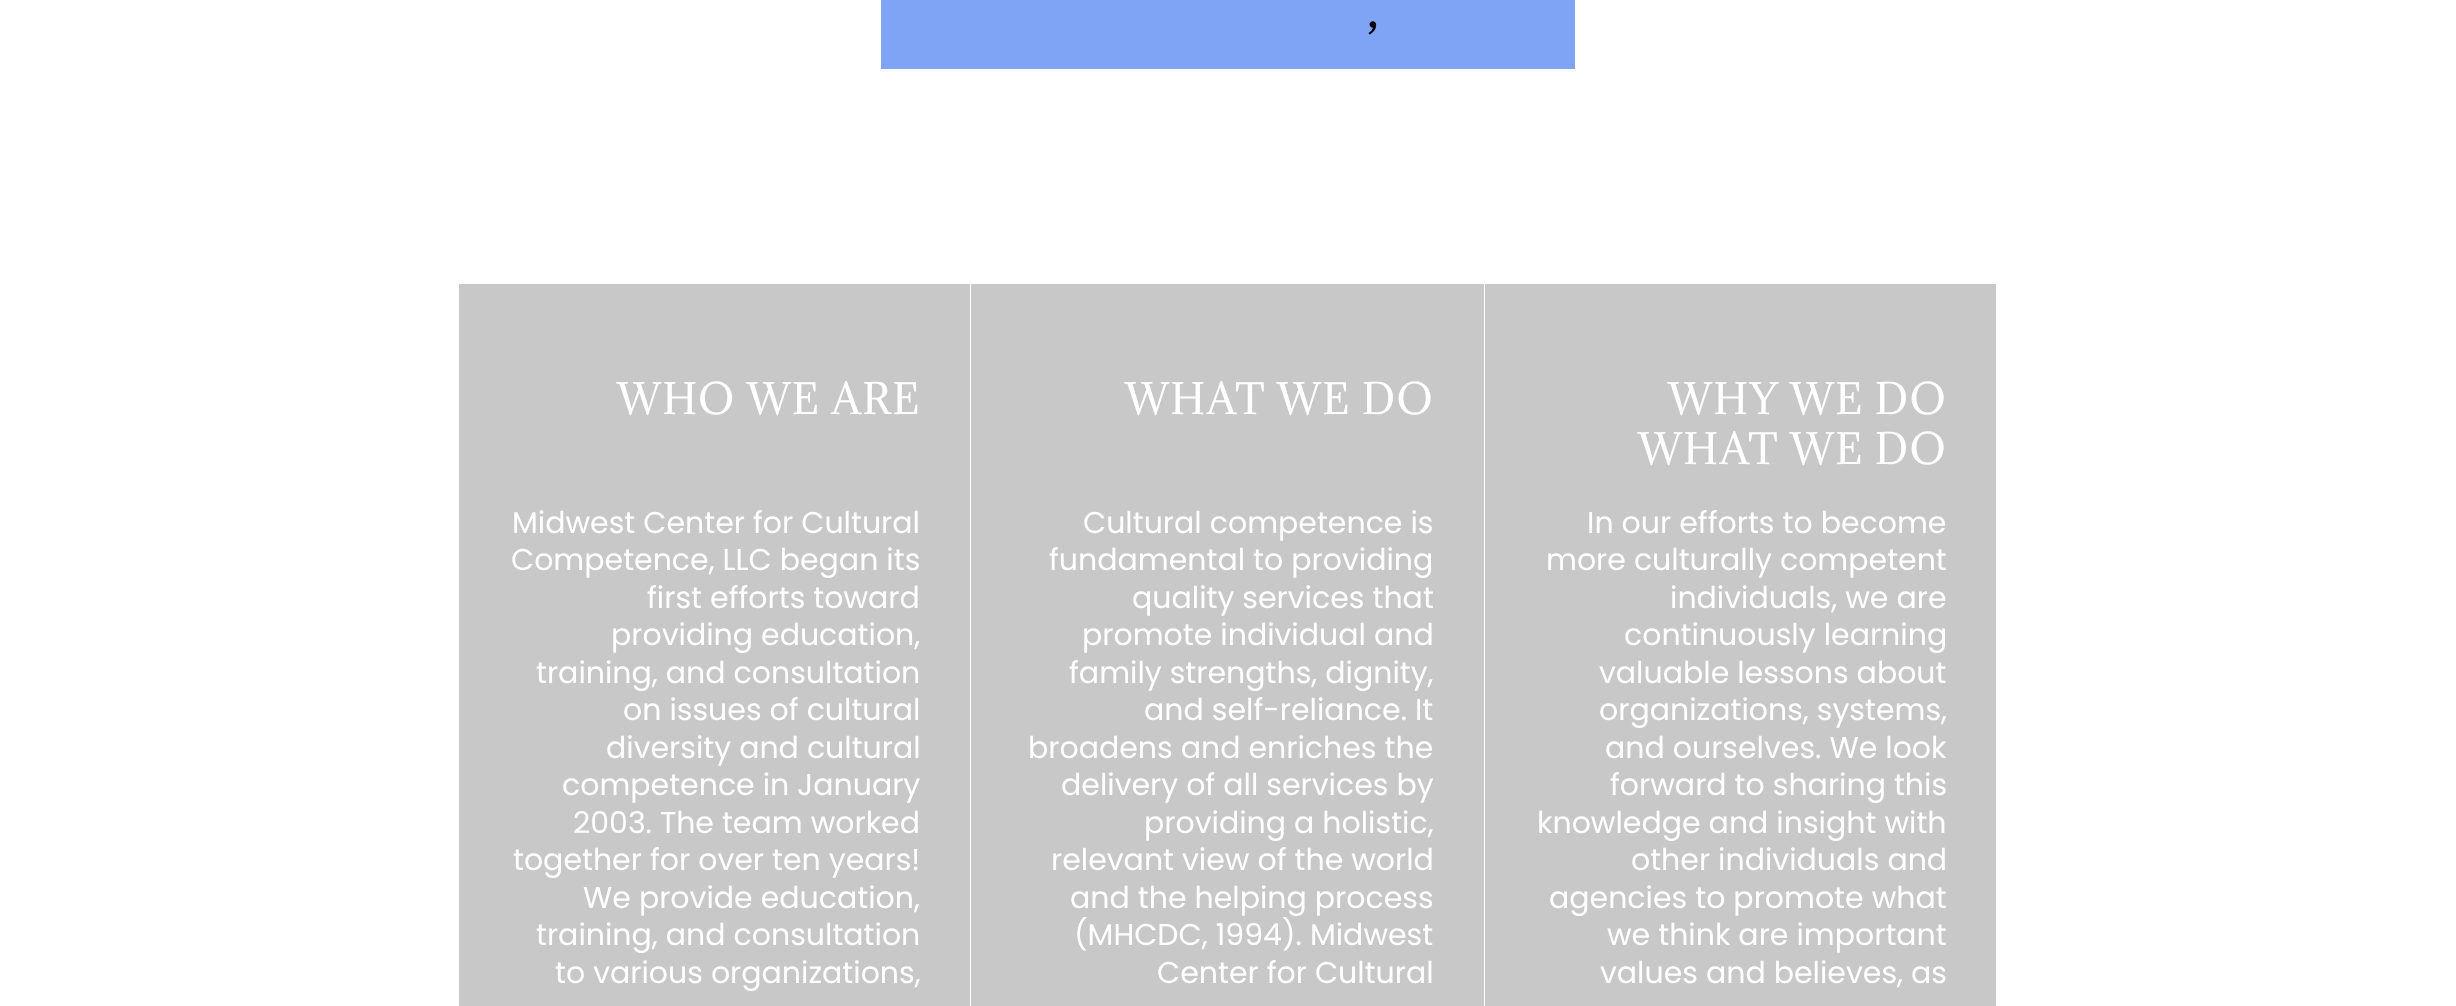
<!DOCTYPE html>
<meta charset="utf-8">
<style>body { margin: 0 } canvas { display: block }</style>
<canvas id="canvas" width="2456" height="1006"></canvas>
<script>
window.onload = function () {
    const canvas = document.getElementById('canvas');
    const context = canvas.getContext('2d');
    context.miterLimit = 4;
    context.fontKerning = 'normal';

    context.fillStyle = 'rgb(255, 255, 255)';
    context.fillRect(0, 0, 2456, 1006);
    context.fillStyle = 'rgb(127, 164, 246)';
    context.fillRect(881, 0, 694, 69);
    context.fillStyle = 'rgb(200, 200, 200)';
    context.fillRect(459, 284, 511, 722);
    context.fillRect(971, 284, 513, 722);
    context.fillRect(1485, 284, 511, 722);
    context.letterSpacing = '1.25px';
    context.font = '52px Adamina';
    context.fillStyle = 'rgb(0, 0, 0)';
    context.fillText(',', 1367, 27);
    context.font = '40px Adamina';
    context.fillStyle = 'rgb(255, 255, 255)';
    context.fillText('WHO WE ARE', 617, 414);
    context.letterSpacing = '0px';
    context.font = '30px Poppins';
    context.fillText('Midwest Center for Cultural', 512, 533);
    context.fillText('Competence, LLC began its', 511, 570);
    context.fillText('first efforts toward', 647, 608);
    context.fillText('providing education,', 611, 645);
    context.fillText('training, and consultation', 536, 683);
    context.fillText('on issues of cultural', 623, 720);
    context.fillText('diversity and cultural', 606, 758);
    context.fillText('competence in January', 562, 795);
    context.fillText('2003. The team worked', 573, 833);
    context.fillText('together for over ten years!', 513, 870);
    context.fillText('We provide education,', 583, 908);
    context.fillText('training, and consultation', 536, 945);
    context.fillText('to various organizations,', 555, 983);
    context.letterSpacing = '1.25px';
    context.font = '40px Adamina';
    context.fillText('WHAT WE DO', 1125, 414);
    context.letterSpacing = '0px';
    context.font = '30px Poppins';
    context.fillText('Cultural competence is', 1083, 533);
    context.fillText('fundamental to providing', 1049, 570);
    context.fillText('quality services that', 1132, 608);
    context.fillText('promote individual and', 1082, 645);
    context.fillText('family strengths, dignity,', 1069, 683);
    context.fillText('and self-reliance. It', 1144, 720);
    context.fillText('broadens and enriches the', 1028, 758);
    context.fillText('delivery of all services by', 1061, 795);
    context.fillText('providing a holistic,', 1144, 833);
    context.fillText('relevant view of the world', 1051, 870);
    context.fillText('and the helping process', 1070, 908);
    context.fillText('(MHCDC, 1994). Midwest', 1074, 945);
    context.fillText('Center for Cultural', 1157, 983);
    context.letterSpacing = '1.25px';
    context.font = '40px Adamina';
    context.fillText('WHY WE DO', 1668, 414);
    context.fillText('WHAT WE DO', 1638, 464);
    context.letterSpacing = '0px';
    context.font = '30px Poppins';
    context.fillText('In our efforts to become', 1587, 533);
    context.fillText('more culturally competent', 1546, 570);
    context.fillText('individuals, we are', 1670, 608);
    context.fillText('continuously learning', 1624, 645);
    context.fillText('valuable lessons about', 1599, 683);
    context.fillText('organizations, systems,', 1599, 720);
    context.fillText('and ourselves. We look', 1605, 758);
    context.fillText('forward to sharing this', 1610, 795);
    context.fillText('knowledge and insight with', 1537, 833);
    context.fillText('other individuals and', 1631, 870);
    context.fillText('agencies to promote what', 1549, 908);
    context.fillText('we think are important', 1607, 945);
    context.fillText('values and believes, as', 1600, 983);
};
</script>
